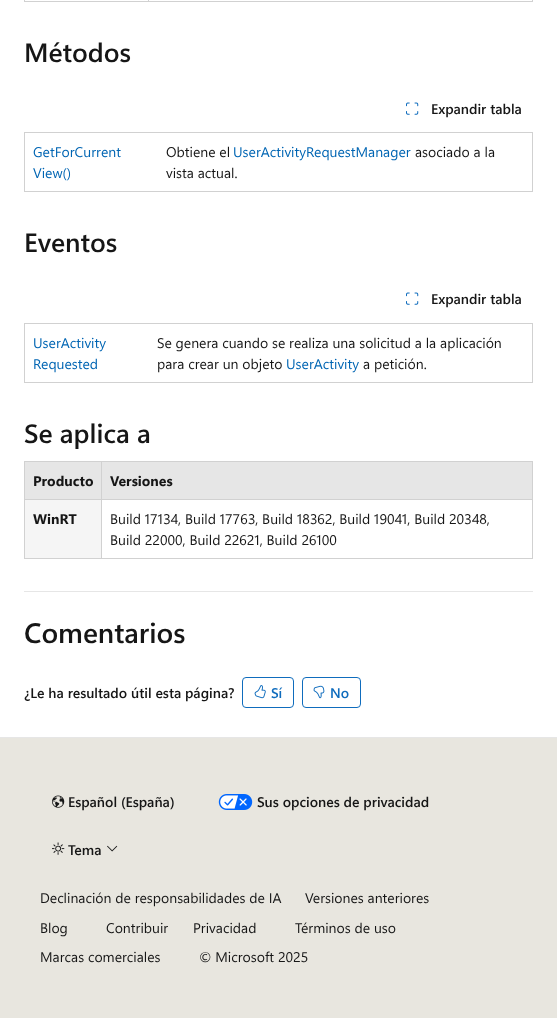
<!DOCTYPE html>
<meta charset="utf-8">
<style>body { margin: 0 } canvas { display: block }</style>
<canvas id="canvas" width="557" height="1018"></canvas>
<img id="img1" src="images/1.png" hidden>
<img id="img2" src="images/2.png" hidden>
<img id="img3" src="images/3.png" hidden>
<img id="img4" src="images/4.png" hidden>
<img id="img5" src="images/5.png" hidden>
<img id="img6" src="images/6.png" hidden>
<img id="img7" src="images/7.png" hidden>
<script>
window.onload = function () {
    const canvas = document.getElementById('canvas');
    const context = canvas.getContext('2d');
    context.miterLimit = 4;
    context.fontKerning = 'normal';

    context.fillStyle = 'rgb(255, 255, 255)';
    context.fillRect(0, 0, 557, 1018);
    context.fillStyle = 'rgb(209, 209, 209)';
    context.fillRect(532, 0, 1, 2);
    context.fillRect(24, 1, 509, 1);
    context.fillRect(24, 0, 1, 2);
    context.fillRect(148, 0, 1, 2);
    context.drawImage(document.getElementById('img1'), 406, 102, 13, 13);
    context.fillRect(24, 132, 509, 1);
    context.fillRect(532, 132, 1, 60);
    context.fillRect(24, 191, 509, 1);
    context.fillRect(24, 132, 1, 60);
    context.drawImage(document.getElementById('img1'), 406, 292, 13, 13);
    context.fillRect(24, 323, 509, 1);
    context.fillRect(532, 323, 1, 60);
    context.fillRect(24, 382, 509, 1);
    context.fillRect(24, 323, 1, 60);
    context.fillRect(24, 461, 509, 1);
    context.fillRect(532, 461, 1, 98);
    context.fillRect(24, 558, 509, 1);
    context.fillRect(24, 461, 1, 98);
    context.fillStyle = 'rgb(230, 230, 230)';
    context.fillRect(25, 462, 507, 37);
    context.fillStyle = 'rgb(209, 209, 209)';
    context.fillRect(101, 499, 432, 1);
    context.fillRect(101, 499, 1, 60);
    context.fillRect(24, 499, 78, 1);
    context.fillRect(101, 461, 1, 39);
    context.fillStyle = 'rgb(245, 245, 245)';
    context.fillRect(25, 500, 76, 58);
    context.fillStyle = 'rgb(230, 230, 230)';
    context.fillRect(24, 591, 509, 1);
    context.beginPath();
    context.roundRect(242.5, 677.5, 51, 30, 3.5);
    context.strokeStyle = 'rgb(15, 108, 189)';
    context.stroke();
    context.drawImage(document.getElementById('img2'), 254, 685, 12, 14);
    context.beginPath();
    context.roundRect(302.5, 677.5, 58, 30, 3.5);
    context.stroke();
    context.drawImage(document.getElementById('img3'), 313, 685, 12, 14);
    context.fillStyle = 'rgb(232, 230, 223)';
    context.fillRect(0, 738, 557, 280);
    context.fillStyle = 'rgb(230, 230, 230)';
    context.fillRect(0, 737, 557, 1);
    context.drawImage(document.getElementById('img4'), 52, 795, 13, 13);
    context.drawImage(document.getElementById('img5'), 218, 794, 35, 16);
    context.drawImage(document.getElementById('img6'), 52, 842, 13, 13);
    context.drawImage(document.getElementById('img7'), 107, 845, 11, 7);
    context.font = '600 26.5px Segoe UI';
    context.fillStyle = 'rgb(22, 22, 22)';
    context.fillText('Métodos', 24, 62);
    context.font = '600 14px Segoe UI';
    context.fillText('Expandir tabla', 431, 114);
    context.font = '14px Segoe UI';
    context.fillStyle = 'rgb(0, 101, 179)';
    context.fillText('GetForCurrent', 33, 157);
    context.fillText('View()', 33, 178);
    context.fillStyle = 'rgb(22, 22, 22)';
    context.fillText('Obtiene el', 166, 157);
    context.fillStyle = 'rgb(0, 101, 179)';
    context.fillText('UserActivityRequestManager', 233, 157);
    context.fillStyle = 'rgb(22, 22, 22)';
    context.fillText('asociado a la', 415, 157);
    context.fillText('vista actual.', 166, 178);
    context.font = '600 26.5px Segoe UI';
    context.fillText('Eventos', 24, 252);
    context.font = '600 14px Segoe UI';
    context.fillText('Expandir tabla', 431, 304);
    context.font = '14px Segoe UI';
    context.fillStyle = 'rgb(0, 101, 179)';
    context.fillText('UserActivity', 33, 348);
    context.fillText('Requested', 33, 369);
    context.fillStyle = 'rgb(22, 22, 22)';
    context.fillText('Se genera cuando se realiza una solicitud a la aplicación', 157, 348);
    context.fillText('para crear un objeto', 157, 369);
    context.fillStyle = 'rgb(0, 101, 179)';
    context.fillText('UserActivity', 286, 369);
    context.fillStyle = 'rgb(22, 22, 22)';
    context.fillText('a petición.', 363, 369);
    context.font = '600 26.5px Segoe UI';
    context.fillText('Se aplica a', 24, 443);
    context.font = 'bold 14px Segoe UI';
    context.fillText('Producto', 33, 486);
    context.fillText('Versiones', 110, 486);
    context.fillText('WinRT', 33, 524);
    context.font = '14px Segoe UI';
    context.fillText('Build 17134, Build 17763, Build 18362, Build 19041, Build 20348,', 110, 524);
    context.fillText('Build 22000, Build 22621, Build 26100', 110, 545);
    context.font = '600 28px Segoe UI';
    context.fillText('Comentarios', 24, 643);
    context.font = '600 14px Segoe UI';
    context.fillText('¿Le ha resultado útil esta página?', 24, 698);
    context.fillStyle = 'rgb(15, 108, 189)';
    context.fillText('Sí', 271, 698);
    context.fillText('No', 330, 698);
    context.fillStyle = 'rgb(22, 22, 22)';
    context.fillText('Español (España)', 68, 807);
    context.fillText('Sus opciones de privacidad', 257, 807);
    context.fillText('Tema', 68, 855);
    context.font = '14px Segoe UI';
    context.fillText('Declinación de responsabilidades de IA', 40, 903);
    context.fillText('Versiones anteriores', 305, 903);
    context.fillText('Blog', 40, 933);
    context.fillText('Contribuir', 106, 933);
    context.fillText('Privacidad', 193, 933);
    context.fillText('Términos de uso', 295, 933);
    context.fillText('Marcas comerciales', 40, 962);
    context.fillText('© Microsoft 2025', 199, 962);
};
</script>
